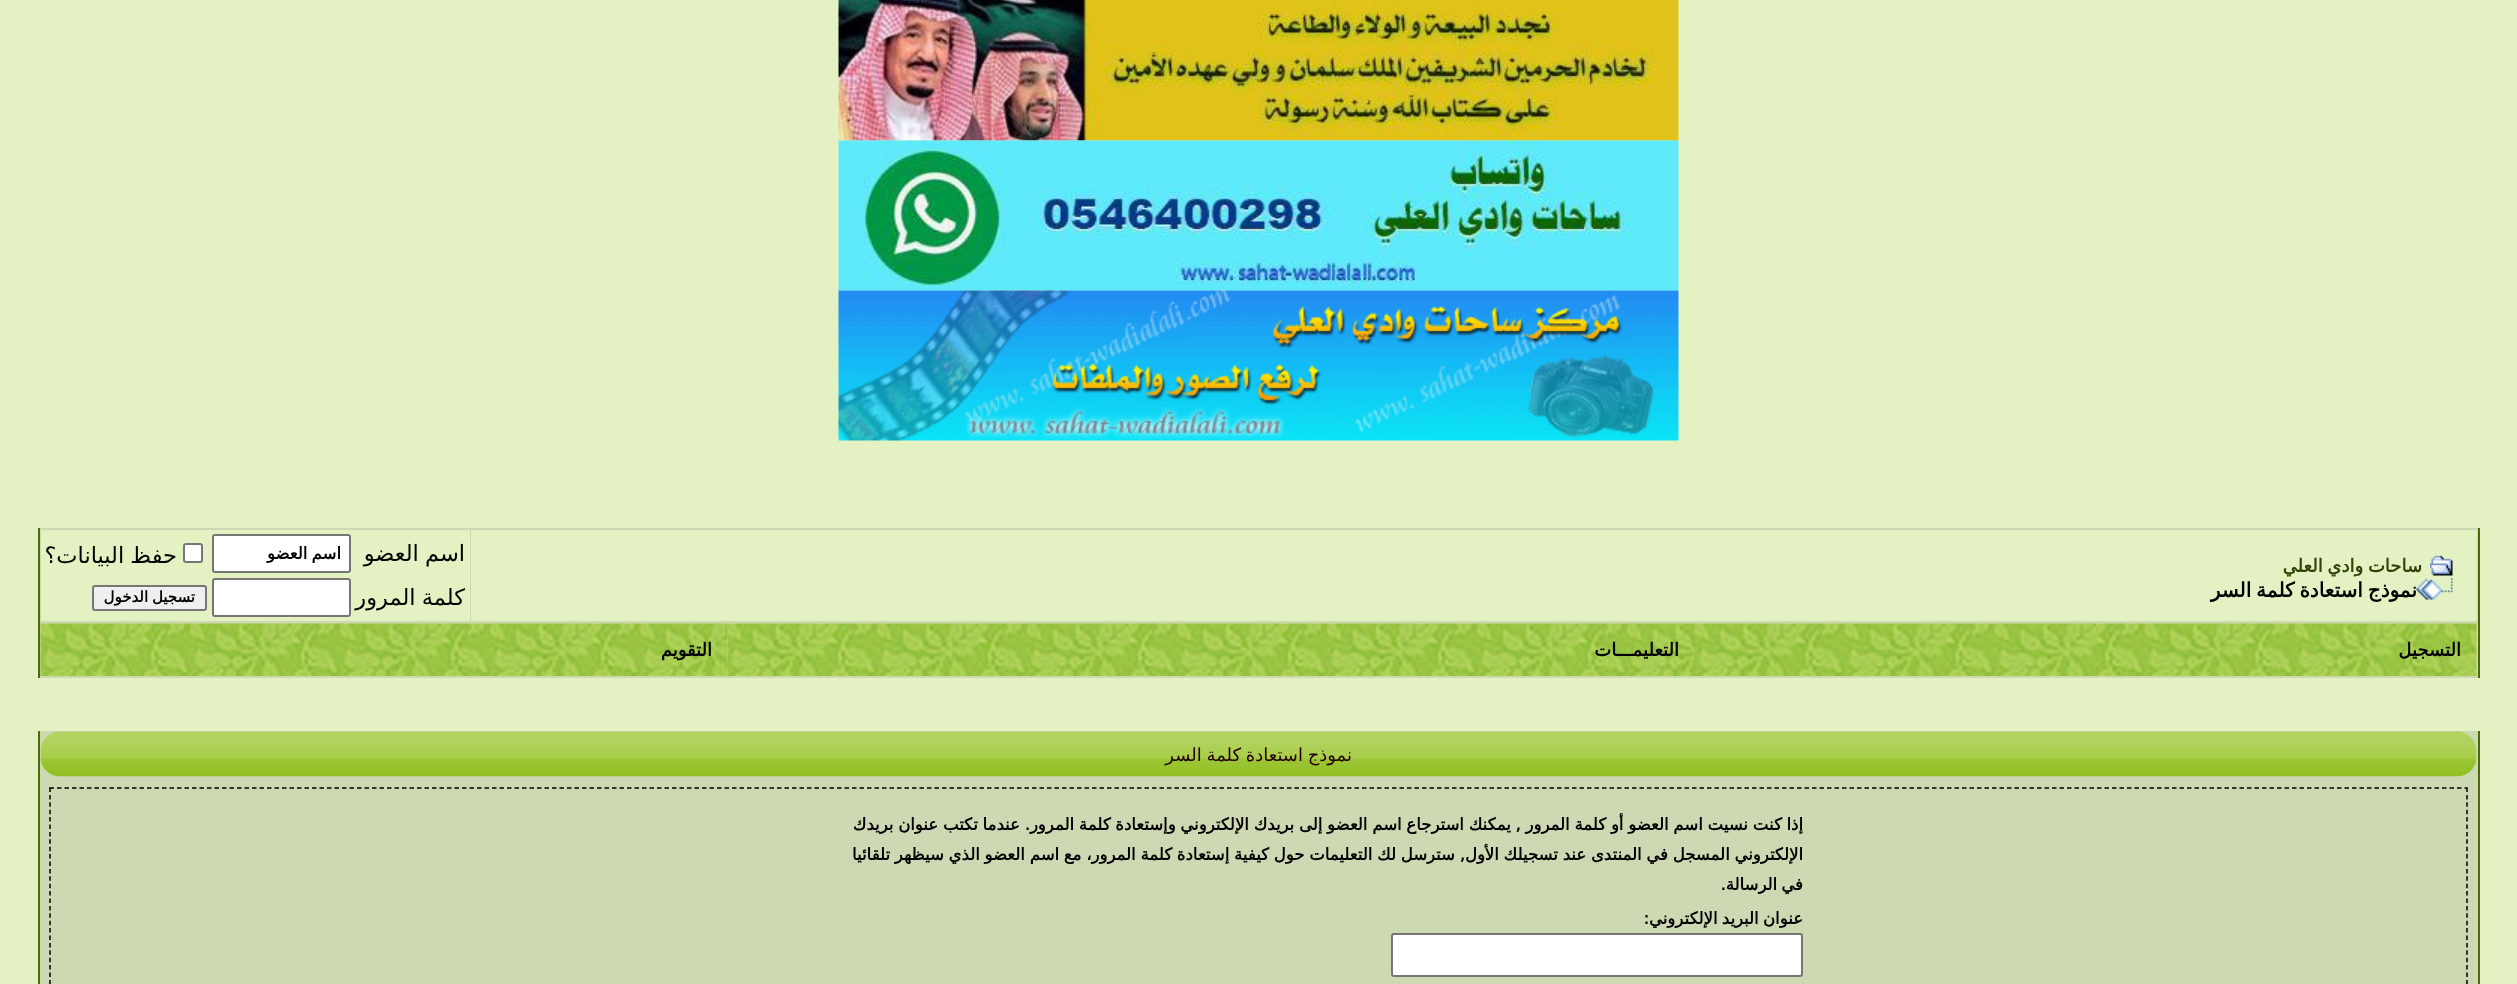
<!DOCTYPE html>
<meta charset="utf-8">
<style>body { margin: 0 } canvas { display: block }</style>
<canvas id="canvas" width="2517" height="984"></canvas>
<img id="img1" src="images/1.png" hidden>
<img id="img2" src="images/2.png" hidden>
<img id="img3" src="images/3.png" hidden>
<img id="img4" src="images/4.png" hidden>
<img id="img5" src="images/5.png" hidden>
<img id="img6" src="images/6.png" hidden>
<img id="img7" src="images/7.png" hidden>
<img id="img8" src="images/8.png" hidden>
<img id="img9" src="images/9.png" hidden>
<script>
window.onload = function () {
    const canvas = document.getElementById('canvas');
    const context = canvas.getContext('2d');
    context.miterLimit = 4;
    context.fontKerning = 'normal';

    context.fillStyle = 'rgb(228, 242, 195)';
    context.fillRect(0, 0, 2517, 984);
    context.drawImage(document.getElementById('img1'), 838, 0, 841, 141);
    context.drawImage(document.getElementById('img2'), 838, 140, 841, 151);
    context.drawImage(document.getElementById('img3'), 838, 290, 841, 151);
    context.fillStyle = 'rgb(205, 217, 178)';
    context.fillRect(40, 528, 2438, 150);
    context.fillStyle = 'rgb(77, 107, 5)';
    context.fillRect(2478, 528, 2, 150);
    context.fillRect(38, 528, 2, 150);
    context.fillStyle = 'rgb(228, 242, 195)';
    context.fillRect(471, 530, 2006, 91);
    context.drawImage(document.getElementById('img4'), 2430, 555, 23, 21);
    context.drawImage(document.getElementById('img5'), 2416, 578, 37, 22);
    context.fillRect(41, 530, 429, 91);
    context.fillStyle = 'rgb(255, 255, 255)';
    context.beginPath();
    context.roundRect(213, 535, 137, 37, 2);
    context.fill();
    context.strokeStyle = 'rgb(118, 118, 118)';
    context.lineWidth = 2;
    context.stroke();
    context.beginPath();
    context.roundRect(184, 544, 18, 18, 2);
    context.fill();
    context.stroke();
    context.beginPath();
    context.roundRect(213, 579, 137, 37, 2);
    context.fill();
    context.stroke();
    context.fillStyle = 'rgb(239, 239, 239)';
    context.beginPath();
    context.roundRect(93, 586, 113, 24, 2);
    context.fill();
    context.stroke();
    context.drawImage(document.getElementById('img6'), 1695, 623, 782, 53);
    context.drawImage(document.getElementById('img7'), 727, 623, 968, 53);
    context.drawImage(document.getElementById('img8'), 40, 623, 688, 53);
    context.fillStyle = 'rgb(205, 217, 178)';
    context.fillRect(40, 731, 2438, 253);
    context.fillStyle = 'rgb(77, 107, 5)';
    context.fillRect(2478, 731, 2, 253);
    context.fillRect(38, 731, 2, 253);
    context.drawImage(document.getElementById('img9'), 40, 731, 2437, 46);
    context.beginPath();
    context.moveTo(49.5, 788);
    context.lineTo(2467.5, 788);
    context.strokeStyle = 'rgb(0, 0, 0)';
    context.lineWidth = 1.5;
    context.setLineDash([4.5, 3]);
    context.stroke();
    context.beginPath();
    context.moveTo(2467, 787.5);
    context.lineTo(2467, 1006.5);
    context.setLineDash([4.5, 2.9]);
    context.stroke();
    context.beginPath();
    context.moveTo(50, 787.5);
    context.lineTo(50, 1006.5);
    context.stroke();
    context.fillStyle = 'rgb(255, 255, 255)';
    context.beginPath();
    context.roundRect(1392, 934, 410, 42, 2);
    context.fill();
    context.strokeStyle = 'rgb(118, 118, 118)';
    context.lineWidth = 2;
    context.setLineDash([]);
    context.stroke();
    context.wordSpacing = '-1px';
    context.direction = 'rtl';
    context.font = 'bold 18px DejaVu Sans';
    context.fillStyle = 'rgb(50, 68, 5)';
    context.fillText('ساحات وادي العلي', 2422, 572);
    context.wordSpacing = '-1.5px';
    context.font = 'bold 20px DejaVu Sans';
    context.fillStyle = 'rgb(0, 0, 0)';
    context.fillText('نموذج استعادة كلمة السر', 2417, 597);
    context.wordSpacing = '-1px';
    context.font = '22.5px DejaVu Sans';
    context.fillText('اسم العضو', 465, 561);
    context.font = 'bold 16.5px DejaVu Sans';
    context.fillText('اسم العضو', 341, 559);
    context.font = '22.5px DejaVu Sans';
    context.fillText('حفظ البيانات؟', 177, 563);
    context.fillText('كلمة المرور', 465, 605);
    context.font = 'bold 15px DejaVu Sans';
    context.fillText('تسجيل الدخول', 195, 602);
    context.wordSpacing = '0px';
    context.font = 'bold 18px DejaVu Sans';
    context.fillText('التسجيل', 2461, 656);
    context.fillText('التعليمـــات', 1679, 656);
    context.fillText('التقويم', 712, 656);
    context.wordSpacing = '-1px';
    context.font = '18px DejaVu Sans';
    context.fillStyle = 'rgb(36, 0, 0)';
    context.fillText('نموذج استعادة كلمة السر', 1352, 761);
    context.wordSpacing = '-0.5px';
    context.font = 'bold 16.5px DejaVu Sans';
    context.fillStyle = 'rgb(0, 0, 0)';
    context.fillText('إذا كنت نسيت اسم العضو أو كلمة المرور , يمكنك استرجاع اسم العضو إلى بريدك الإلكتروني وإستعادة كلمة المرور. عندما تكتب عنوان بريدك', 1803, 830);
    context.fillText('الإلكتروني المسجل في المنتدى عند تسجيلك الأول, سترسل لك التعليمات حول كيفية إستعادة كلمة المرور، مع اسم العضو الذي سيظهر تلقائيا', 1803, 860);
    context.wordSpacing = '-1px';
    context.fillText('في الرسالة.', 1803, 890);
    context.fillText('عنوان البريد الإلكتروني:', 1803, 924);
};
</script>
